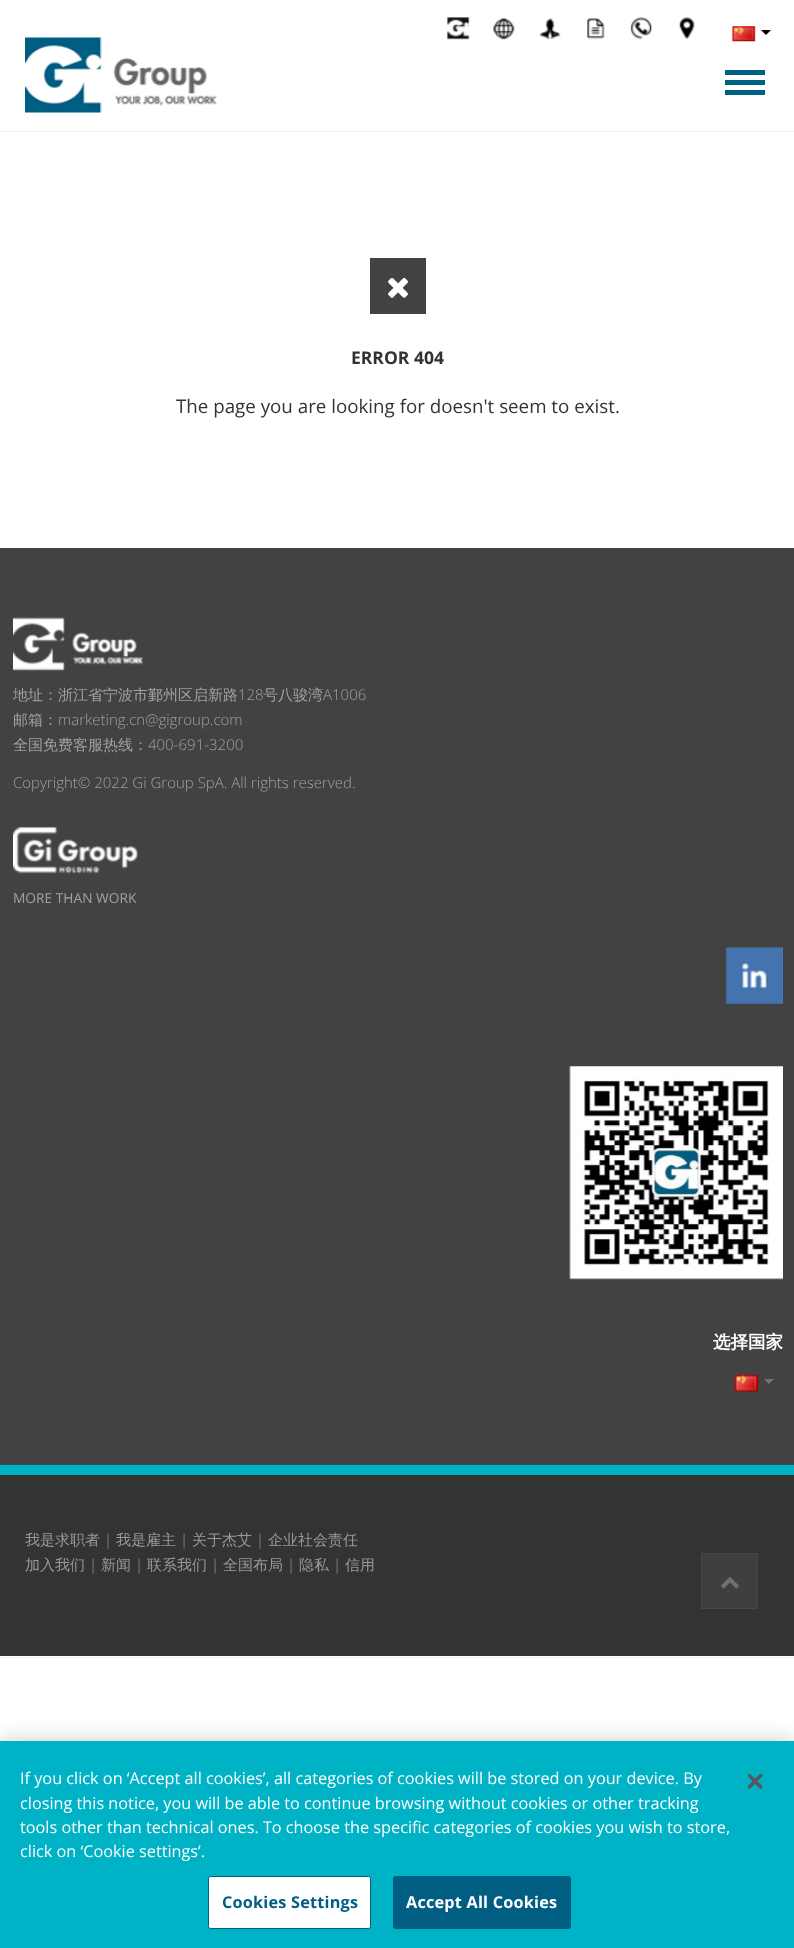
<!DOCTYPE html>
<meta charset="utf-8">
<style>body { margin: 0 } canvas { display: block }</style>
<canvas id="canvas" width="794" height="1948"></canvas>
<img id="img1" src="images/1.png" hidden>
<img id="img2" src="images/2.png" hidden>
<img id="img3" src="images/3.png" hidden>
<img id="img4" src="images/4.png" hidden>
<img id="img5" src="images/5.png" hidden>
<img id="img6" src="images/6.png" hidden>
<img id="img7" src="images/7.png" hidden>
<img id="img8" src="images/8.png" hidden>
<img id="img9" src="images/9.png" hidden>
<img id="img10" src="images/10.png" hidden>
<img id="img11" src="images/11.png" hidden>
<img id="img12" src="images/12.png" hidden>
<img id="img13" src="images/13.png" hidden>
<img id="img14" src="images/14.png" hidden>
<img id="img15" src="images/15.png" hidden>
<img id="img16" src="images/16.png" hidden>
<script>
window.onload = function () {
    const canvas = document.getElementById('canvas');
    const context = canvas.getContext('2d');
    context.miterLimit = 4;
    context.fontKerning = 'normal';

    context.fillStyle = 'rgb(255, 255, 255)';
    context.fillRect(0, 0, 794, 1948);
    context.strokeStyle = 'rgb(240, 240, 240)';
    context.strokeRect(-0.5, -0.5, 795, 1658);
    context.fillStyle = 'rgb(238, 238, 238)';
    context.fillRect(0, 131, 794, 1);
    context.drawImage(document.getElementById('img1'), 447, 17, 23, 23);
    context.drawImage(document.getElementById('img2'), 493, 18, 22, 22);
    context.drawImage(document.getElementById('img3'), 539, 18, 22, 22);
    context.drawImage(document.getElementById('img4'), 587, 18, 18, 22);
    context.drawImage(document.getElementById('img5'), 630, 17, 22, 23);
    context.drawImage(document.getElementById('img6'), 679, 17, 16, 23);
    context.drawImage(document.getElementById('img7'), 732, 26, 24, 16);
    context.fillStyle = 'rgb(0, 0, 0)';
    context.beginPath();
    context.moveTo(761, 30);
    context.lineTo(771, 30);
    context.lineTo(766, 35);
    context.closePath();
    context.fill();
    context.drawImage(document.getElementById('img8'), 25, 37, 192, 76);
    context.fillStyle = 'rgb(0, 96, 131)';
    context.fillRect(725, 70, 40, 5);
    context.fillRect(725, 80, 40, 5);
    context.fillRect(725, 90, 40, 5);
    context.fillStyle = 'rgb(66, 66, 66)';
    context.fillRect(370, 258, 56, 56);
    context.drawImage(document.getElementById('img9'), 388, 277, 20, 21);
    context.fillRect(0, 548, 794, 916);
    context.fillStyle = 'rgb(74, 74, 74)';
    context.fillRect(0, 1464, 794, 1);
    context.drawImage(document.getElementById('img10'), 13, 617, 130, 54);
    context.drawImage(document.getElementById('img11'), 13, 827, 125, 47);
    context.drawImage(document.getElementById('img12'), 725, 947, 58, 58);
    context.strokeStyle = 'rgba(255, 255, 255, 0.04)';
    context.strokeRect(726.5, 948.5, 56, 55);
    context.drawImage(document.getElementById('img13'), 569, 1066, 214, 214);
    context.drawImage(document.getElementById('img14'), 735, 1375, 23, 17);
    context.fillStyle = 'rgb(115, 115, 115)';
    context.beginPath();
    context.moveTo(764, 1379);
    context.lineTo(774, 1379);
    context.lineTo(769, 1384);
    context.closePath();
    context.fill();
    context.fillStyle = 'rgb(51, 51, 51)';
    context.fillRect(0, 1475, 794, 181);
    context.fillStyle = 'rgb(0, 178, 198)';
    context.fillRect(0, 1465, 794, 10);
    context.fillStyle = 'rgb(63, 63, 63)';
    context.beginPath();
    context.rect(701.5, 1553.5, 56, 55);
    context.fill();
    context.strokeStyle = 'rgb(71, 71, 71)';
    context.stroke();
    context.drawImage(document.getElementById('img15'), 721, 1577, 18, 12);
    context.fillStyle = 'rgba(0, 0, 0, 0.2)';
    context.filter = 'blur(11px)';
    context.beginPath();
    context.rect(0, 1741, 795, 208);
    context.fill();
    context.filter = 'none';
    context.fillStyle = 'rgb(0, 178, 198)';
    context.fillRect(0, 1741, 794, 207);
    context.fillStyle = 'rgb(255, 255, 255)';
    context.beginPath();
    context.roundRect(208.5, 1876.5, 162, 52, 2);
    context.fill();
    context.strokeStyle = 'rgb(0, 94, 131)';
    context.stroke();
    context.fillStyle = 'rgb(0, 94, 131)';
    context.beginPath();
    context.roundRect(393.5, 1876.5, 177, 52, 2);
    context.fill();
    context.stroke();
    context.drawImage(document.getElementById('img16'), 748, 1774, 15, 15);
    context.font = 'bold 17.5px Open Sans';
    context.fillStyle = 'rgb(51, 51, 51)';
    context.fillText('ERROR 404', 351, 364);
    context.font = '18.75px Open Sans';
    context.fillText('The page you are looking for doesn\'t seem to exist.', 176, 413);
    context.font = '500 15px WenQuanYi Zen Hei';
    context.fillStyle = 'rgb(161, 161, 161)';
    context.fillText('地址：浙江省宁波市鄞州区启新路', 13, 700);
    context.font = '300 15px Open Sans';
    context.fillText('128', 238, 700);
    context.font = '500 15px WenQuanYi Zen Hei';
    context.fillText('号八骏湾', 263, 700);
    context.font = '300 15px Open Sans';
    context.fillText('A1006', 323, 700);
    context.font = '500 15px WenQuanYi Zen Hei';
    context.fillText('邮箱：', 13, 725);
    context.font = '300 15px Open Sans';
    context.fillText('marketing.cn@gigroup.com', 58, 725);
    context.font = '500 15px WenQuanYi Zen Hei';
    context.fillText('全国免费客服热线：', 13, 750);
    context.font = '300 15px Open Sans';
    context.fillText('400-691-3200', 148, 750);
    context.fillText('Copyright© 2022 Gi Group SpA. All rights reserved.', 13, 788);
    context.font = '13.75px Open Sans';
    context.fillText('MORE THAN WORK', 13, 903);
    context.font = 'bold 17.5px WenQuanYi Zen Hei';
    context.fillStyle = 'rgb(255, 255, 255)';
    context.fillText('选择国家', 713, 1348);
    context.font = '500 15px WenQuanYi Zen Hei';
    context.fillStyle = 'rgb(153, 153, 153)';
    context.fillText('我是求职者', 25, 1545);
    context.font = '300 15px Open Sans';
    context.fillText('|', 104, 1545);
    context.font = '500 15px WenQuanYi Zen Hei';
    context.fillText('我是雇主', 116, 1545);
    context.font = '300 15px Open Sans';
    context.fillText('|', 180, 1545);
    context.font = '500 15px WenQuanYi Zen Hei';
    context.fillText('关于杰艾', 192, 1545);
    context.font = '300 15px Open Sans';
    context.fillText('|', 256, 1545);
    context.font = '500 15px WenQuanYi Zen Hei';
    context.fillText('企业社会责任', 268, 1545);
    context.fillText('加入我们', 25, 1570);
    context.font = '300 15px Open Sans';
    context.fillText('|', 89, 1570);
    context.font = '500 15px WenQuanYi Zen Hei';
    context.fillText('新闻', 101, 1570);
    context.font = '300 15px Open Sans';
    context.fillText('|', 135, 1570);
    context.font = '500 15px WenQuanYi Zen Hei';
    context.fillText('联系我们', 147, 1570);
    context.font = '300 15px Open Sans';
    context.fillText('|', 211, 1570);
    context.font = '500 15px WenQuanYi Zen Hei';
    context.fillText('全国布局', 223, 1570);
    context.font = '300 15px Open Sans';
    context.fillText('|', 287, 1570);
    context.font = '500 15px WenQuanYi Zen Hei';
    context.fillText('隐私', 299, 1570);
    context.font = '300 15px Open Sans';
    context.fillText('|', 333, 1570);
    context.font = '500 15px WenQuanYi Zen Hei';
    context.fillText('信用', 345, 1570);
    context.font = '16.25px Open Sans';
    context.fillStyle = 'rgb(255, 255, 255)';
    context.fillText('If you click on ‘Accept all cookies’, all categories of cookies will be stored on your device. By', 20, 1784);
    context.fillText('closing this notice, you will be able to continue browsing without cookies or other tracking', 20, 1809);
    context.fillText('tools other than technical ones. To choose the specific categories of cookies you wish to store,', 20, 1833);
    context.fillText('click on ‘Cookie settings’.', 20, 1857);
    context.letterSpacing = '0.2px';
    context.font = 'bold 16.25px Open Sans';
    context.fillStyle = 'rgb(0, 94, 131)';
    context.fillText('Cookies Settings', 222, 1908);
    context.fillStyle = 'rgb(255, 255, 255)';
    context.fillText('Accept All Cookies', 406, 1908);
};
</script>
